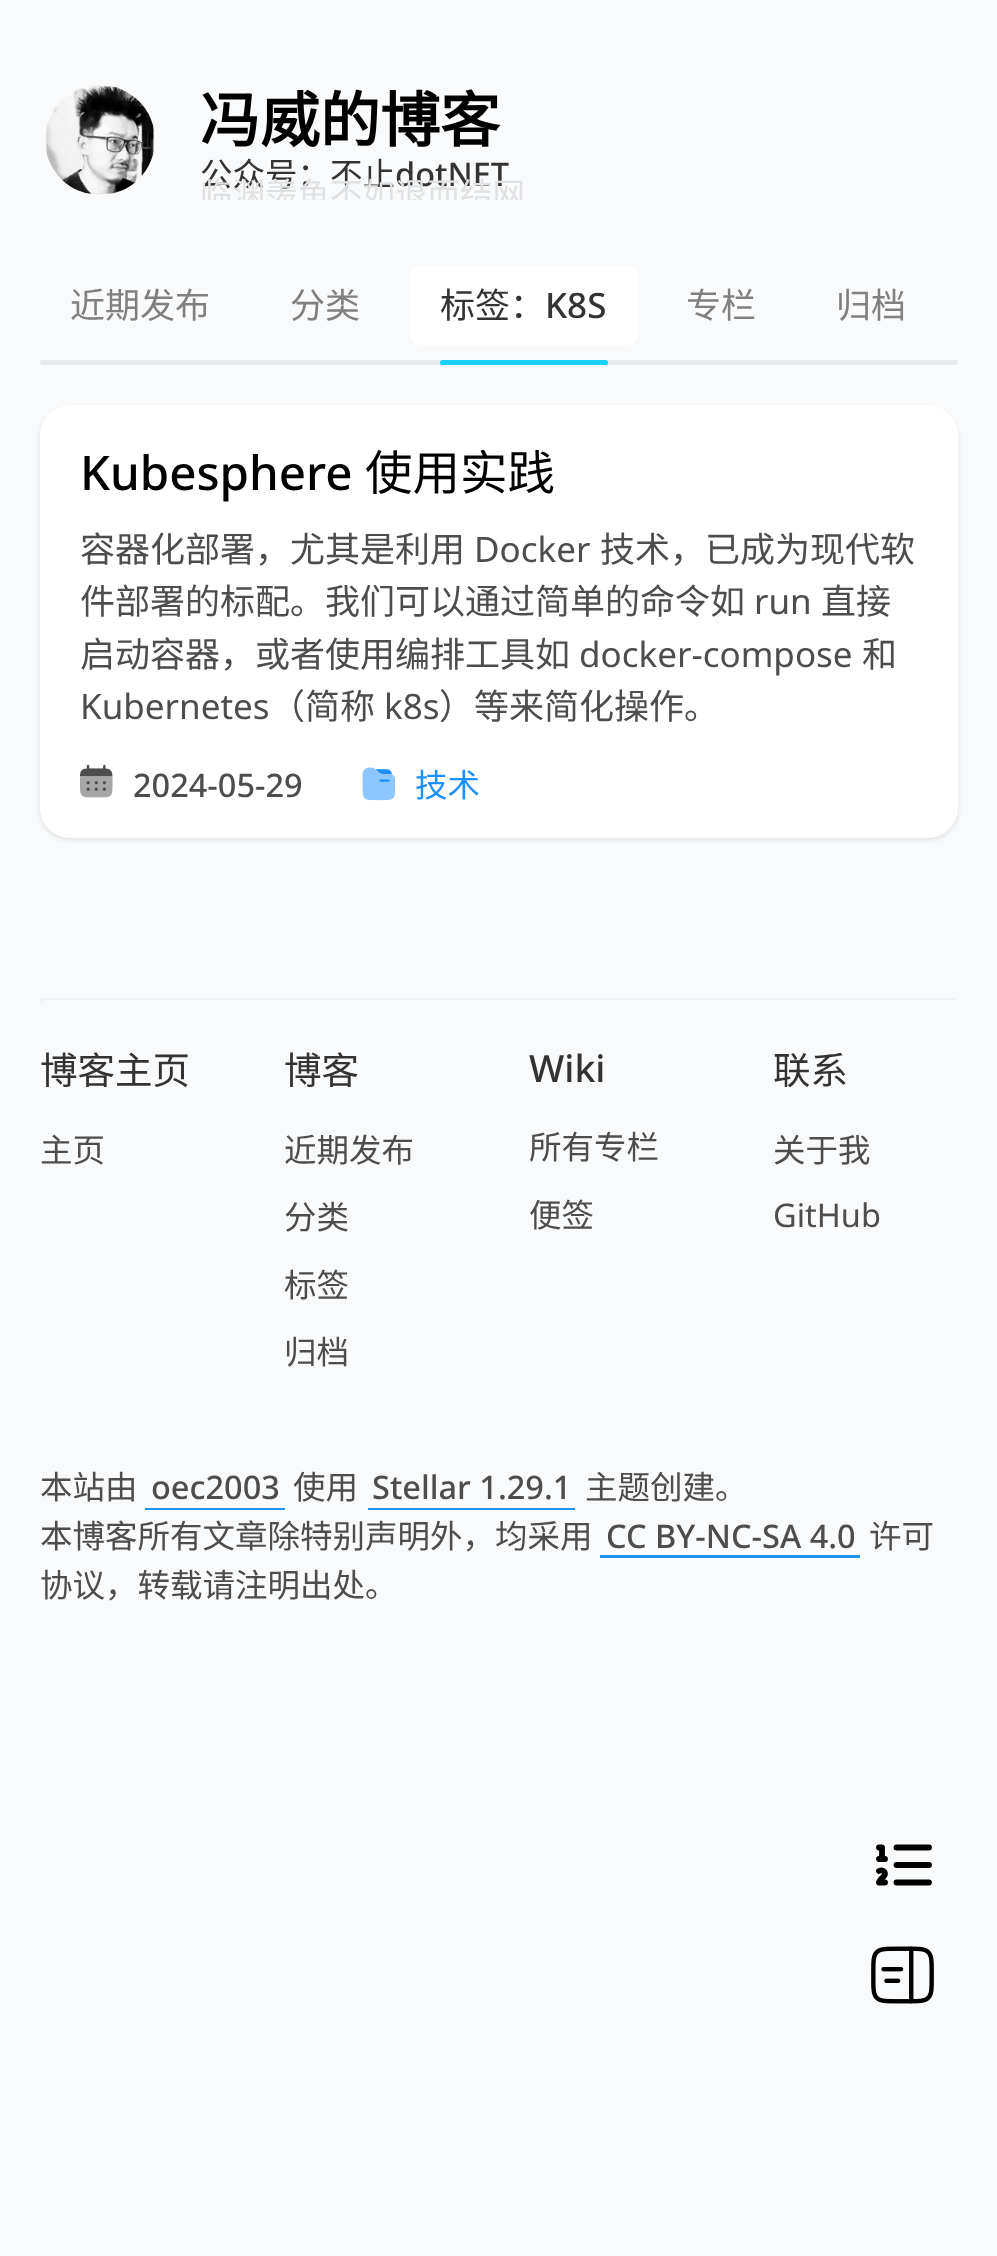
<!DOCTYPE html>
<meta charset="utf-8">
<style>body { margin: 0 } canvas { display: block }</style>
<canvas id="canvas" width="997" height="2256"></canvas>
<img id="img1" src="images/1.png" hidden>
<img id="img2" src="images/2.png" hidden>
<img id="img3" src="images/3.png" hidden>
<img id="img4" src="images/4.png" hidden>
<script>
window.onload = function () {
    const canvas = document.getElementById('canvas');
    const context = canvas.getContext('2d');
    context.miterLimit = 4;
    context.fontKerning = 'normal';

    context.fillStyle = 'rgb(249, 250, 251)';
    context.fillRect(0, 0, 997, 2256);
    context.drawImage(document.getElementById('img1'), 45, 85, 110, 110);
    context.fillStyle = 'rgb(255, 255, 255)';
    context.beginPath();
    context.roundRect(410, 265, 228, 80, 10);
    context.fill();
    context.fillStyle = 'rgb(233, 234, 236)';
    context.beginPath();
    context.roundRect(40, 360, 918, 5, 2.5);
    context.fill();
    context.fillStyle = 'rgb(28, 208, 253)';
    context.beginPath();
    context.roundRect(440, 360, 168, 5, 2.5);
    context.fill();
    context.fillStyle = 'rgba(0, 0, 0, 0.1)';
    context.filter = 'blur(2.5px)';
    context.beginPath();
    context.roundRect(40, 408, 918, 432, 30);
    context.fill();
    context.filter = 'none';
    context.fillStyle = 'rgb(255, 255, 255)';
    context.beginPath();
    context.roundRect(40, 405, 918, 433, 30);
    context.fill();
    context.drawImage(document.getElementById('img2'), 80, 764, 33, 34);
    context.drawImage(document.getElementById('img3'), 362, 767, 34, 34);
    context.fillStyle = 'rgb(240, 241, 242)';
    context.fillRect(40, 998, 918, 2);
    context.fillStyle = 'rgb(248, 249, 250)';
    context.fillRect(955, 998, 3, 5);
    context.fillStyle = 'rgb(240, 241, 242)';
    context.fillRect(40, 998, 3, 5);
    context.fillStyle = 'rgb(32, 148, 243)';
    context.fillRect(145, 1508, 140, 2);
    context.fillRect(368, 1508, 207, 2);
    context.fillRect(600, 1555, 260, 3);
    context.beginPath();
    context.moveTo(896.5, 1847.5);
    context.lineTo(929, 1847.5);
    context.moveTo(896.5, 1865);
    context.lineTo(929, 1865);
    context.moveTo(896.5, 1882.5);
    context.lineTo(929, 1882.5);
    context.moveTo(879, 1847.5);
    context.lineTo(882, 1847.5);
    context.lineTo(882, 1859);
    context.moveTo(879, 1859);
    context.lineTo(885, 1859);
    context.moveTo(885, 1882.5);
    context.lineTo(879, 1882.5);
    context.bezierCurveTo(879, 1879.5, 885, 1876.5, 885, 1874);
    context.bezierCurveTo(885, 1871, 882, 1869.5, 879, 1871);
    context.strokeStyle = 'rgb(0, 0, 0)';
    context.lineWidth = 5.8;
    context.lineCap = 'round';
    context.lineJoin = 'round';
    context.stroke();
    context.drawImage(document.getElementById('img4'), 871, 1946, 63, 58);
    context.font = 'bold 60px Noto Sans CJK SC';
    context.fillStyle = 'rgb(0, 0, 0)';
    context.fillText('冯威的博客', 200, 142);
    context.font = '32.5px Noto Sans CJK SC';
    context.fillStyle = 'rgb(51, 51, 51)';
    context.fillText('公众号：不止', 200, 186);
    context.font = '500 32.5px Noto Sans';
    context.fillText('dotNET', 395, 186);
    context.save();
    context.beginPath();
    context.rect(40, 80, 918, 120);
    context.clip();
    context.font = '32.5px Noto Sans CJK SC';
    context.fillStyle = 'rgb(224, 225, 226)';
    context.fillText('临渊羡鱼不如退而结网', 200, 206);
    context.restore();
    context.font = '35px Noto Sans CJK SC';
    context.fillStyle = 'rgb(128, 128, 128)';
    context.fillText('近期发布', 70, 318);
    context.fillText('分类', 290, 318);
    context.fillStyle = 'rgb(51, 51, 51)';
    context.fillText('标签：', 440, 318);
    context.font = '500 35px Noto Sans';
    context.fillText('K8S', 545, 318);
    context.font = '35px Noto Sans CJK SC';
    context.fillStyle = 'rgb(128, 128, 128)';
    context.fillText('专栏', 686, 318);
    context.fillText('归档', 836, 318);
    context.font = '500 47.5px Noto Sans';
    context.fillStyle = 'rgb(0, 0, 0)';
    context.fillText('Kubesphere', 80, 490);
    context.font = '47.5px Noto Sans CJK SC';
    context.fillText('使用实践', 365, 490);
    context.font = '35px Noto Sans CJK SC';
    context.fillStyle = 'rgb(77, 77, 77)';
    context.fillText('容器化部署，尤其是利用', 80, 562);
    context.font = '35px Noto Sans';
    context.fillText('Docker', 474, 562);
    context.font = '35px Noto Sans CJK SC';
    context.fillText('技术，已成为现代软', 600, 562);
    context.fillText('件部署的标配。我们可以通过简单的命令如', 80, 614);
    context.font = '35px Noto Sans';
    context.fillText('run', 754, 614);
    context.font = '35px Noto Sans CJK SC';
    context.fillText('直接', 821, 614);
    context.fillText('启动容器，或者使用编排工具如', 80, 667);
    context.font = '35px Noto Sans';
    context.fillText('docker-compose', 579, 667);
    context.font = '35px Noto Sans CJK SC';
    context.fillText('和', 862, 667);
    context.font = '35px Noto Sans';
    context.fillText('Kubernetes', 80, 719);
    context.font = '35px Noto Sans CJK SC';
    context.fillText('（简称', 270, 719);
    context.font = '35px Noto Sans';
    context.fillText('k8s', 384, 719);
    context.font = '35px Noto Sans CJK SC';
    context.fillText('）等来简化操作。', 439, 719);
    context.font = '500 32.5px Noto Sans';
    context.fillText('2024-05-29', 133, 797);
    context.font = '32.5px Noto Sans CJK SC';
    context.fillStyle = 'rgb(30, 144, 255)';
    context.fillText('技术', 415, 797);
    context.font = '37.5px Noto Sans CJK SC';
    context.fillStyle = 'rgb(51, 51, 51)';
    context.fillText('博客主页', 40, 1084);
    context.font = '32.5px Noto Sans CJK SC';
    context.fillStyle = 'rgb(77, 77, 77)';
    context.fillText('主页', 40, 1162);
    context.font = '37.5px Noto Sans CJK SC';
    context.fillStyle = 'rgb(51, 51, 51)';
    context.fillText('博客', 284, 1084);
    context.font = '32.5px Noto Sans CJK SC';
    context.fillStyle = 'rgb(77, 77, 77)';
    context.fillText('近期发布', 284, 1162);
    context.fillText('分类', 284, 1229);
    context.fillText('标签', 284, 1297);
    context.fillText('归档', 284, 1364);
    context.font = '500 37.5px Noto Sans';
    context.fillStyle = 'rgb(51, 51, 51)';
    context.fillText('Wiki', 529, 1082);
    context.font = '32.5px Noto Sans CJK SC';
    context.fillStyle = 'rgb(77, 77, 77)';
    context.fillText('所有专栏', 529, 1159);
    context.fillText('便签', 529, 1227);
    context.font = '37.5px Noto Sans CJK SC';
    context.fillStyle = 'rgb(51, 51, 51)';
    context.fillText('联系', 773, 1084);
    context.font = '32.5px Noto Sans CJK SC';
    context.fillStyle = 'rgb(77, 77, 77)';
    context.fillText('关于我', 773, 1162);
    context.font = '32.5px Noto Sans';
    context.fillText('GitHub', 773, 1227);
    context.font = '32.5px Noto Sans CJK SC';
    context.fillText('本站由', 40, 1499);
    context.font = '500 32.5px Noto Sans';
    context.fillText('oec2003', 151, 1499);
    context.font = '32.5px Noto Sans CJK SC';
    context.fillText('使用', 293, 1499);
    context.font = '500 32.5px Noto Sans';
    context.fillText('Stellar 1.29.1', 372, 1499);
    context.font = '32.5px Noto Sans CJK SC';
    context.fillText('主题创建。', 585, 1499);
    context.fillText('本博客所有文章除特别声明外，均采用', 40, 1548);
    context.font = '500 32.5px Noto Sans';
    context.fillText('CC BY-NC-SA 4.0', 606, 1548);
    context.font = '32.5px Noto Sans CJK SC';
    context.fillText('许可', 869, 1548);
    context.fillText('协议，转载请注明出处。', 40, 1597);
};
</script>
